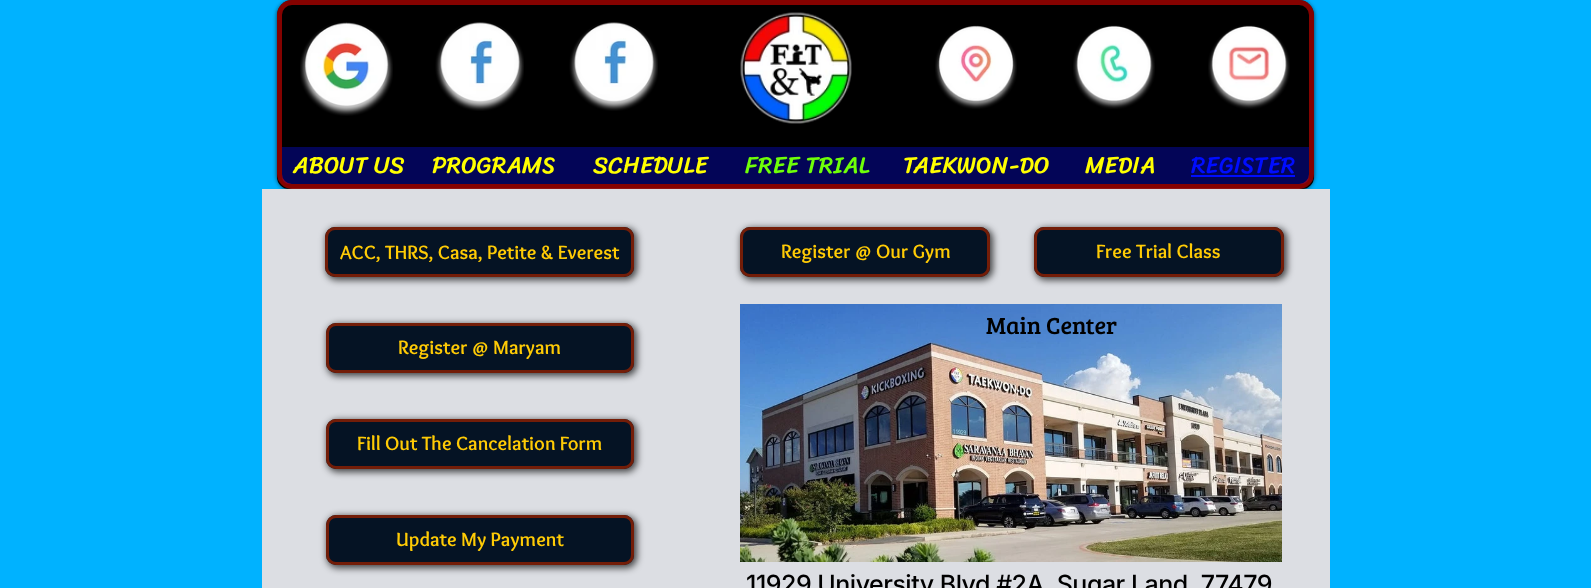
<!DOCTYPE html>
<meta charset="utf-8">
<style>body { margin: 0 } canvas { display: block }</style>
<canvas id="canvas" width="1591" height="588"></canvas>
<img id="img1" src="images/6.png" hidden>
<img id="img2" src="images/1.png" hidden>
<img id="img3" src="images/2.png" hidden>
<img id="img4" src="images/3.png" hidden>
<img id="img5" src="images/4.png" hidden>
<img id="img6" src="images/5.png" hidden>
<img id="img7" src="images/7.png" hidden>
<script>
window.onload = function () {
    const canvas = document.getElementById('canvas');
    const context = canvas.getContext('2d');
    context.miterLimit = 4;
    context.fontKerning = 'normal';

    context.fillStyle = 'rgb(0, 178, 255)';
    context.fillRect(0, 0, 1591, 588);
    context.fillStyle = 'rgba(51, 51, 51, 0.25)';
    context.filter = 'blur(2px)';
    context.beginPath();
    context.roundRect(277, 2, 1037, 189, 15);
    context.fill();
    context.filter = 'none';
    context.fillStyle = 'rgba(0, 0, 0, 0.6)';
    context.filter = 'blur(2px)';
    context.beginPath();
    context.roundRect(277, 1, 1037, 189, 15);
    context.fill();
    context.filter = 'none';
    context.fillStyle = 'rgb(0, 0, 0)';
    context.beginPath();
    context.roundRect(277, 0, 1037, 189, 15);
    context.fill();
    context.drawImage(document.getElementById('img1'), 1208, 25, 82, 84);
    context.fillStyle = 'rgb(3, 5, 87)';
    context.beginPath();
    context.roundRect(279.5, 144.5, 1032, 42, [0, 0, 9.5, 9.5]);
    context.fill();
    context.strokeStyle = 'rgb(0, 0, 0)';
    context.lineWidth = 5;
    context.stroke();
    context.fillStyle = 'rgb(0, 13, 255)';
    context.fillRect(1191, 175, 104, 2);
    context.beginPath();
    context.roundRect(279.5, 2.5, 1032, 184, 12.5);
    context.strokeStyle = 'rgba(255, 4, 0, 0.52)';
    context.stroke();
    context.drawImage(document.getElementById('img2'), 300, 22, 93, 94);
    context.drawImage(document.getElementById('img3'), 435, 22, 89, 89);
    context.drawImage(document.getElementById('img3'), 569, 22, 89, 89);
    context.drawImage(document.getElementById('img4'), 740, 12, 112, 112);
    context.drawImage(document.getElementById('img5'), 935, 25, 82, 84);
    context.drawImage(document.getElementById('img6'), 1073, 25, 82, 84);
    context.save();
    context.beginPath();
    context.roundRect(277, 142, 1037, 47, [0, 0, 12, 12]);
    context.clip();
    context.fillStyle = 'rgba(255, 255, 255, 0.08)';
    context.fillRect(277, 188, 1037, 1);
    context.restore();
    context.fillStyle = 'rgb(220, 222, 227)';
    context.fillRect(262, 189, 1068, 399);
    context.fillStyle = 'rgba(0, 0, 0, 0.7)';
    context.filter = 'blur(3.5px)';
    context.beginPath();
    context.roundRect(326, 228, 311, 52, 11);
    context.fill();
    context.filter = 'none';
    context.fillStyle = 'rgb(5, 19, 36)';
    context.beginPath();
    context.roundRect(325, 227, 309, 50, 10);
    context.fill();
    context.beginPath();
    context.roundRect(326.5, 228.5, 306, 47, 8.5);
    context.strokeStyle = 'rgb(115, 29, 8)';
    context.lineWidth = 3;
    context.stroke();
    context.fillStyle = 'rgba(0, 0, 0, 0.7)';
    context.filter = 'blur(3.5px)';
    context.beginPath();
    context.roundRect(741, 228, 252, 52, 11);
    context.fill();
    context.filter = 'none';
    context.fillStyle = 'rgb(5, 19, 36)';
    context.beginPath();
    context.roundRect(740, 227, 250, 50, 10);
    context.fill();
    context.beginPath();
    context.roundRect(741.5, 228.5, 247, 47, 8.5);
    context.stroke();
    context.fillStyle = 'rgba(0, 0, 0, 0.7)';
    context.filter = 'blur(3.5px)';
    context.beginPath();
    context.roundRect(1035, 228, 252, 52, 11);
    context.fill();
    context.filter = 'none';
    context.fillStyle = 'rgb(5, 19, 36)';
    context.beginPath();
    context.roundRect(1034, 227, 250, 50, 10);
    context.fill();
    context.beginPath();
    context.roundRect(1035.5, 228.5, 247, 47, 8.5);
    context.stroke();
    context.drawImage(document.getElementById('img7'), 740, 304, 542, 258);
    context.fillStyle = 'rgba(0, 0, 0, 0.7)';
    context.filter = 'blur(3.5px)';
    context.beginPath();
    context.roundRect(327, 324, 310, 52, 11);
    context.fill();
    context.filter = 'none';
    context.fillStyle = 'rgb(5, 19, 36)';
    context.beginPath();
    context.roundRect(326, 323, 308, 50, 10);
    context.fill();
    context.beginPath();
    context.roundRect(327.5, 324.5, 305, 47, 8.5);
    context.stroke();
    context.fillStyle = 'rgba(0, 0, 0, 0.7)';
    context.filter = 'blur(3.5px)';
    context.beginPath();
    context.roundRect(327, 420, 310, 52, 11);
    context.fill();
    context.filter = 'none';
    context.fillStyle = 'rgb(5, 19, 36)';
    context.beginPath();
    context.roundRect(326, 419, 308, 50, 10);
    context.fill();
    context.beginPath();
    context.roundRect(327.5, 420.5, 305, 47, 8.5);
    context.stroke();
    context.fillStyle = 'rgba(0, 0, 0, 0.7)';
    context.filter = 'blur(3.5px)';
    context.beginPath();
    context.roundRect(327, 516, 310, 52, 11);
    context.fill();
    context.filter = 'none';
    context.fillStyle = 'rgb(5, 19, 36)';
    context.beginPath();
    context.roundRect(326, 515, 308, 50, 10);
    context.fill();
    context.beginPath();
    context.roundRect(327.5, 516.5, 305, 47, 8.5);
    context.stroke();
    context.font = '24px Sriracha';
    context.fillStyle = 'rgb(255, 255, 0)';
    context.fillText('ABOUT US', 293, 173);
    context.fillText('PROGRAMS', 432, 173);
    context.fillText('SCHEDULE', 593, 173);
    context.fillStyle = 'rgb(111, 255, 8)';
    context.fillText('FREE TRIAL', 745, 173);
    context.fillStyle = 'rgb(255, 255, 0)';
    context.fillText('TAEKWON-DO', 903, 173);
    context.fillText('MEDIA', 1085, 173);
    context.fillStyle = 'rgb(0, 13, 255)';
    context.fillText('REGISTER', 1191, 173);
    context.font = 'bold 20px Overlock';
    context.fillStyle = 'rgb(255, 203, 5)';
    context.fillText('ACC, THRS, Casa, Petite & Everest', 340, 259);
    context.fillText('Register @ Our Gym', 781, 258);
    context.fillText('Free Trial Class', 1096, 258);
    context.font = '24px Bree Serif';
    context.fillStyle = 'rgb(0, 0, 0)';
    context.fillText('Main Center', 986, 334);
    context.font = 'bold 20px Overlock';
    context.fillStyle = 'rgb(255, 203, 5)';
    context.fillText('Register @ Maryam', 398, 354);
    context.fillText('Fill Out The Cancelation Form', 357, 450);
    context.fillText('Update My Payment', 396, 546);
    context.letterSpacing = '-0.5px';
    context.font = '500 25px Inter';
    context.fillStyle = 'rgb(0, 0, 0)';
    context.fillText('11929 University Blvd #2A, Sugar Land, 77479', 746, 593);
};
</script>
